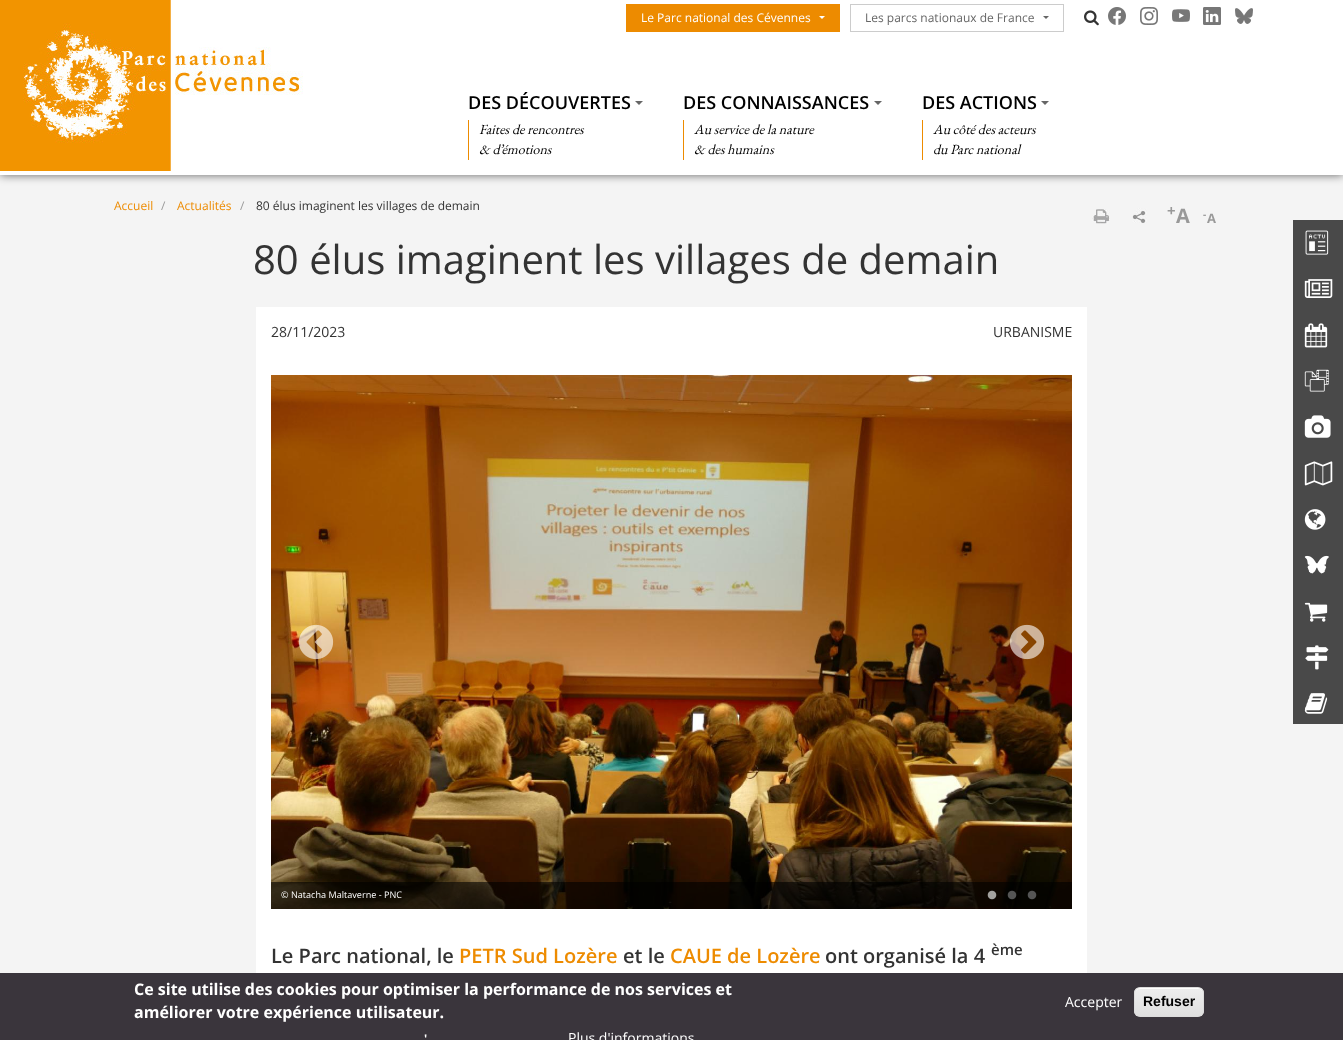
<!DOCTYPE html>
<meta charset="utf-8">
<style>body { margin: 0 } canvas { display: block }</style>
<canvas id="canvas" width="1343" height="1040"></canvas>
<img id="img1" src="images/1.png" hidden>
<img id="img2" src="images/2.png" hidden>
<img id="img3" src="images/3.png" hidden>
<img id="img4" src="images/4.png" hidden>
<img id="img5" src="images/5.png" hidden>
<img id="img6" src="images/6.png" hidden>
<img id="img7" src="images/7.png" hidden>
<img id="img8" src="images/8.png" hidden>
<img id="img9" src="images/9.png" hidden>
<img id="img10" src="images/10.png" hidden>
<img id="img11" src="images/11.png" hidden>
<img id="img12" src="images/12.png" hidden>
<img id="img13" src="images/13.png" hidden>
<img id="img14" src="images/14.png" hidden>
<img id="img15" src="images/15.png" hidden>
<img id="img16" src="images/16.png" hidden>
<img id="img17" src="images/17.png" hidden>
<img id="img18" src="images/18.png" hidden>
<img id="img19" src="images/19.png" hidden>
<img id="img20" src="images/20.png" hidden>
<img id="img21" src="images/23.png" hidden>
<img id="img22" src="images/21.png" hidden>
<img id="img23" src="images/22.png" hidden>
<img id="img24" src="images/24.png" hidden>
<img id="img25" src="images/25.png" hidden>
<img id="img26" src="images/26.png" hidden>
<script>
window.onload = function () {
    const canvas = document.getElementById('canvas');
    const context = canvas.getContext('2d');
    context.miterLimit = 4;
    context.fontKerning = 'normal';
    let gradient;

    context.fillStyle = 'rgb(244, 244, 244)';
    context.fillRect(0, 0, 1343, 1040);
    context.fillStyle = 'rgba(0, 0, 0, 0.6)';
    context.filter = 'blur(5px)';
    context.beginPath();
    context.rect(0, 0, 1343, 175);
    context.fill();
    context.filter = 'none';
    context.fillStyle = 'rgb(255, 255, 255)';
    context.fillRect(0, 0, 1343, 175);
    context.drawImage(document.getElementById('img1'), 0, 0, 303, 171);
    context.fillStyle = 'rgb(237, 139, 0)';
    context.fillRect(626, 4, 214, 28);
    context.fillStyle = 'rgb(255, 255, 255)';
    context.beginPath();
    context.moveTo(819, 16);
    context.lineTo(825, 16);
    context.lineTo(822, 19);
    context.closePath();
    context.fill();
    context.strokeStyle = 'rgb(204, 204, 204)';
    context.strokeRect(850.5, 4.5, 213, 27);
    context.fillStyle = 'rgb(102, 102, 102)';
    context.beginPath();
    context.moveTo(1043, 16);
    context.lineTo(1049, 16);
    context.lineTo(1046, 19);
    context.closePath();
    context.fill();
    context.drawImage(document.getElementById('img2'), 1084, 10, 15, 16);
    context.drawImage(document.getElementById('img3'), 1108, 7, 18, 18);
    context.drawImage(document.getElementById('img4'), 1140, 7, 18, 18);
    context.drawImage(document.getElementById('img5'), 1172, 9, 18, 13);
    context.drawImage(document.getElementById('img6'), 1203, 7, 18, 18);
    context.drawImage(document.getElementById('img7'), 1235, 8, 18, 16);
    context.beginPath();
    context.moveTo(635, 101);
    context.lineTo(643, 101);
    context.lineTo(639, 105);
    context.closePath();
    context.fill();
    context.fillStyle = 'rgb(237, 139, 0)';
    context.fillRect(468, 120, 1, 40);
    context.fillStyle = 'rgb(102, 102, 102)';
    context.beginPath();
    context.moveTo(874, 101);
    context.lineTo(882, 101);
    context.lineTo(878, 105);
    context.closePath();
    context.fill();
    context.fillStyle = 'rgb(237, 139, 0)';
    context.fillRect(683, 120, 1, 40);
    context.fillStyle = 'rgb(102, 102, 102)';
    context.beginPath();
    context.moveTo(1041, 101);
    context.lineTo(1049, 101);
    context.lineTo(1045, 105);
    context.closePath();
    context.fill();
    context.fillStyle = 'rgb(237, 139, 0)';
    context.fillRect(922, 120, 1, 40);
    context.fillStyle = 'rgb(73, 73, 73)';
    context.fillRect(1293, 220, 50, 504);
    context.drawImage(document.getElementById('img8'), 1305, 230, 24, 25);
    context.drawImage(document.getElementById('img9'), 1304, 279, 29, 19);
    context.drawImage(document.getElementById('img10'), 1304, 323, 24, 25);
    context.drawImage(document.getElementById('img11'), 1304, 369, 25, 23);
    context.drawImage(document.getElementById('img12'), 1304, 415, 27, 23);
    context.drawImage(document.getElementById('img13'), 1304, 461, 29, 25);
    context.drawImage(document.getElementById('img14'), 1304, 509, 22, 21);
    context.drawImage(document.getElementById('img15'), 1304, 555, 25, 19);
    context.drawImage(document.getElementById('img16'), 1304, 602, 24, 20);
    context.drawImage(document.getElementById('img17'), 1305, 645, 24, 25);
    context.drawImage(document.getElementById('img18'), 1304, 693, 24, 21);
    context.drawImage(document.getElementById('img19'), 1092, 209, 18, 15);
    context.drawImage(document.getElementById('img20'), 1132, 208, 15, 15);
    context.fillStyle = 'rgb(255, 255, 255)';
    context.fillRect(256, 307, 831, 666);
    context.drawImage(document.getElementById('img21'), 271, 375, 801, 534);
    context.drawImage(document.getElementById('img22'), 298, 624, 36, 36);
    context.drawImage(document.getElementById('img23'), 1009, 624, 36, 36);
    context.fillStyle = 'rgba(0, 0, 0, 0.6)';
    context.fillRect(271, 882, 801, 27);
    context.drawImage(document.getElementById('img24'), 987, 890, 10, 10);
    context.drawImage(document.getElementById('img25'), 1007, 890, 10, 10);
    context.drawImage(document.getElementById('img26'), 1027, 890, 10, 10);
    context.fillStyle = 'rgb(58, 53, 60)';
    context.fillRect(0, 973, 1343, 67);
    context.save();
    context.beginPath();
    context.roundRect(1134, 987, 70, 30, 6);
    context.clip();
    gradient = context.createLinearGradient(1169, 988, 1169, 1016);
    gradient.addColorStop(0.05, 'rgb(237, 237, 237)');
    gradient.addColorStop(1, 'rgb(223, 223, 223)');
    context.fillStyle = gradient;
    context.fillRect(1134, 988, 70, 28);
    context.restore();
    context.fillStyle = 'rgb(255, 255, 255)';
    context.beginPath();
    context.moveTo(1140, 989);
    context.lineTo(1198, 989);
    context.bezierCurveTo(1201, 989, 1203, 991, 1203, 994);
    context.bezierCurveTo(1203, 986, 1194, 988, 1188, 988);
    context.lineTo(1150, 988);
    context.bezierCurveTo(1144, 988, 1135, 986, 1135, 994);
    context.bezierCurveTo(1135, 991, 1137, 989, 1140, 989);
    context.closePath();
    context.fill();
    context.beginPath();
    context.roundRect(1134.5, 987.5, 69, 29, 5.5);
    context.strokeStyle = 'rgb(220, 220, 220)';
    context.stroke();
    context.font = '12px Open Sans';
    context.fillText('Le Parc national des Cévennes', 641, 22);
    context.fillStyle = 'rgb(102, 102, 102)';
    context.fillText('Les parcs nationaux de France', 865, 22);
    context.font = '600 18px Open Sans';
    context.fillStyle = 'rgb(0, 0, 0)';
    context.fillText('DES DÉCOUVERTES', 468, 109);
    context.font = 'italic 14px EB Garamond';
    context.fillText('Faites de rencontres', 479, 134);
    context.fillText('& d’émotions', 479, 154);
    context.font = '600 18px Open Sans';
    context.fillText('DES CONNAISSANCES', 683, 109);
    context.font = 'italic 14px EB Garamond';
    context.fillText('Au service de la nature', 694, 134);
    context.fillText('& des humains', 694, 154);
    context.font = '600 18px Open Sans';
    context.fillText('DES ACTIONS', 922, 109);
    context.font = 'italic 14px EB Garamond';
    context.fillText('Au côté des acteurs', 933, 134);
    context.fillText('du Parc national', 933, 154);
    context.font = '12px Open Sans';
    context.fillStyle = 'rgb(237, 139, 0)';
    context.fillText('Accueil', 114, 210);
    context.fillStyle = 'rgb(153, 153, 153)';
    context.fillText('/', 161, 210);
    context.fillStyle = 'rgb(237, 139, 0)';
    context.fillText('Actualités', 177, 210);
    context.fillStyle = 'rgb(153, 153, 153)';
    context.fillText('/', 240, 210);
    context.fillStyle = 'rgb(51, 51, 51)';
    context.fillText('80 élus imaginent les villages de demain', 256, 210);
    context.font = 'bold 15px Open Sans';
    context.fillStyle = 'rgb(153, 153, 153)';
    context.fillText('+', 1167, 216);
    context.font = 'bold 20px Open Sans';
    context.fillText('A', 1176, 223);
    context.font = 'bold 13px Open Sans';
    context.fillText('A', 1207, 223);
    context.font = 'bold 10px Open Sans';
    context.fillText('-', 1203, 218);
    context.font = '40px Open Sans';
    context.fillStyle = 'rgb(51, 51, 51)';
    context.fillText('80 élus imaginent les villages de demain', 253, 274);
    context.font = '14px Open Sans';
    context.fillText('28/11/2023', 271, 337);
    context.fillText('URBANISME', 993, 337);
    context.font = '9.1px Open Sans';
    context.fillStyle = 'rgb(255, 255, 255)';
    context.fillText('© Natacha Maltaverne - PNC', 281, 898);
    context.font = '600 20px Open Sans';
    context.fillStyle = 'rgb(51, 51, 51)';
    context.fillText('Le Parc national, le', 271, 963);
    context.fillStyle = 'rgb(237, 139, 0)';
    context.fillText('PETR Sud Lozère', 459, 963);
    context.fillStyle = 'rgb(51, 51, 51)';
    context.fillText('et le', 623, 963);
    context.fillStyle = 'rgb(237, 139, 0)';
    context.fillText('CAUE de Lozère', 670, 963);
    context.fillStyle = 'rgb(51, 51, 51)';
    context.fillText('ont organisé la 4', 825, 963);
    context.font = '600 15px Open Sans';
    context.fillText('ème', 991, 955);
    context.font = 'bold 16px Open Sans';
    context.fillStyle = 'rgb(255, 255, 255)';
    context.fillText('Ce site utilise des cookies pour optimiser la performance de nos services et', 134, 995);
    context.fillText('améliorer votre expérience utilisateur.', 134, 1018);
    context.font = 'bold 12px Open Sans';
    context.fillText('\'', 424, 1043);
    context.font = '14px Open Sans';
    context.fillText('Plus d\'informations', 568, 1043);
    context.fillText('Accepter', 1065, 1007);
    context.font = 'bold 14px Liberation Sans';
    context.fillStyle = 'rgb(0, 0, 0)';
    context.fillText('Refuser', 1143, 1006);
};
</script>
